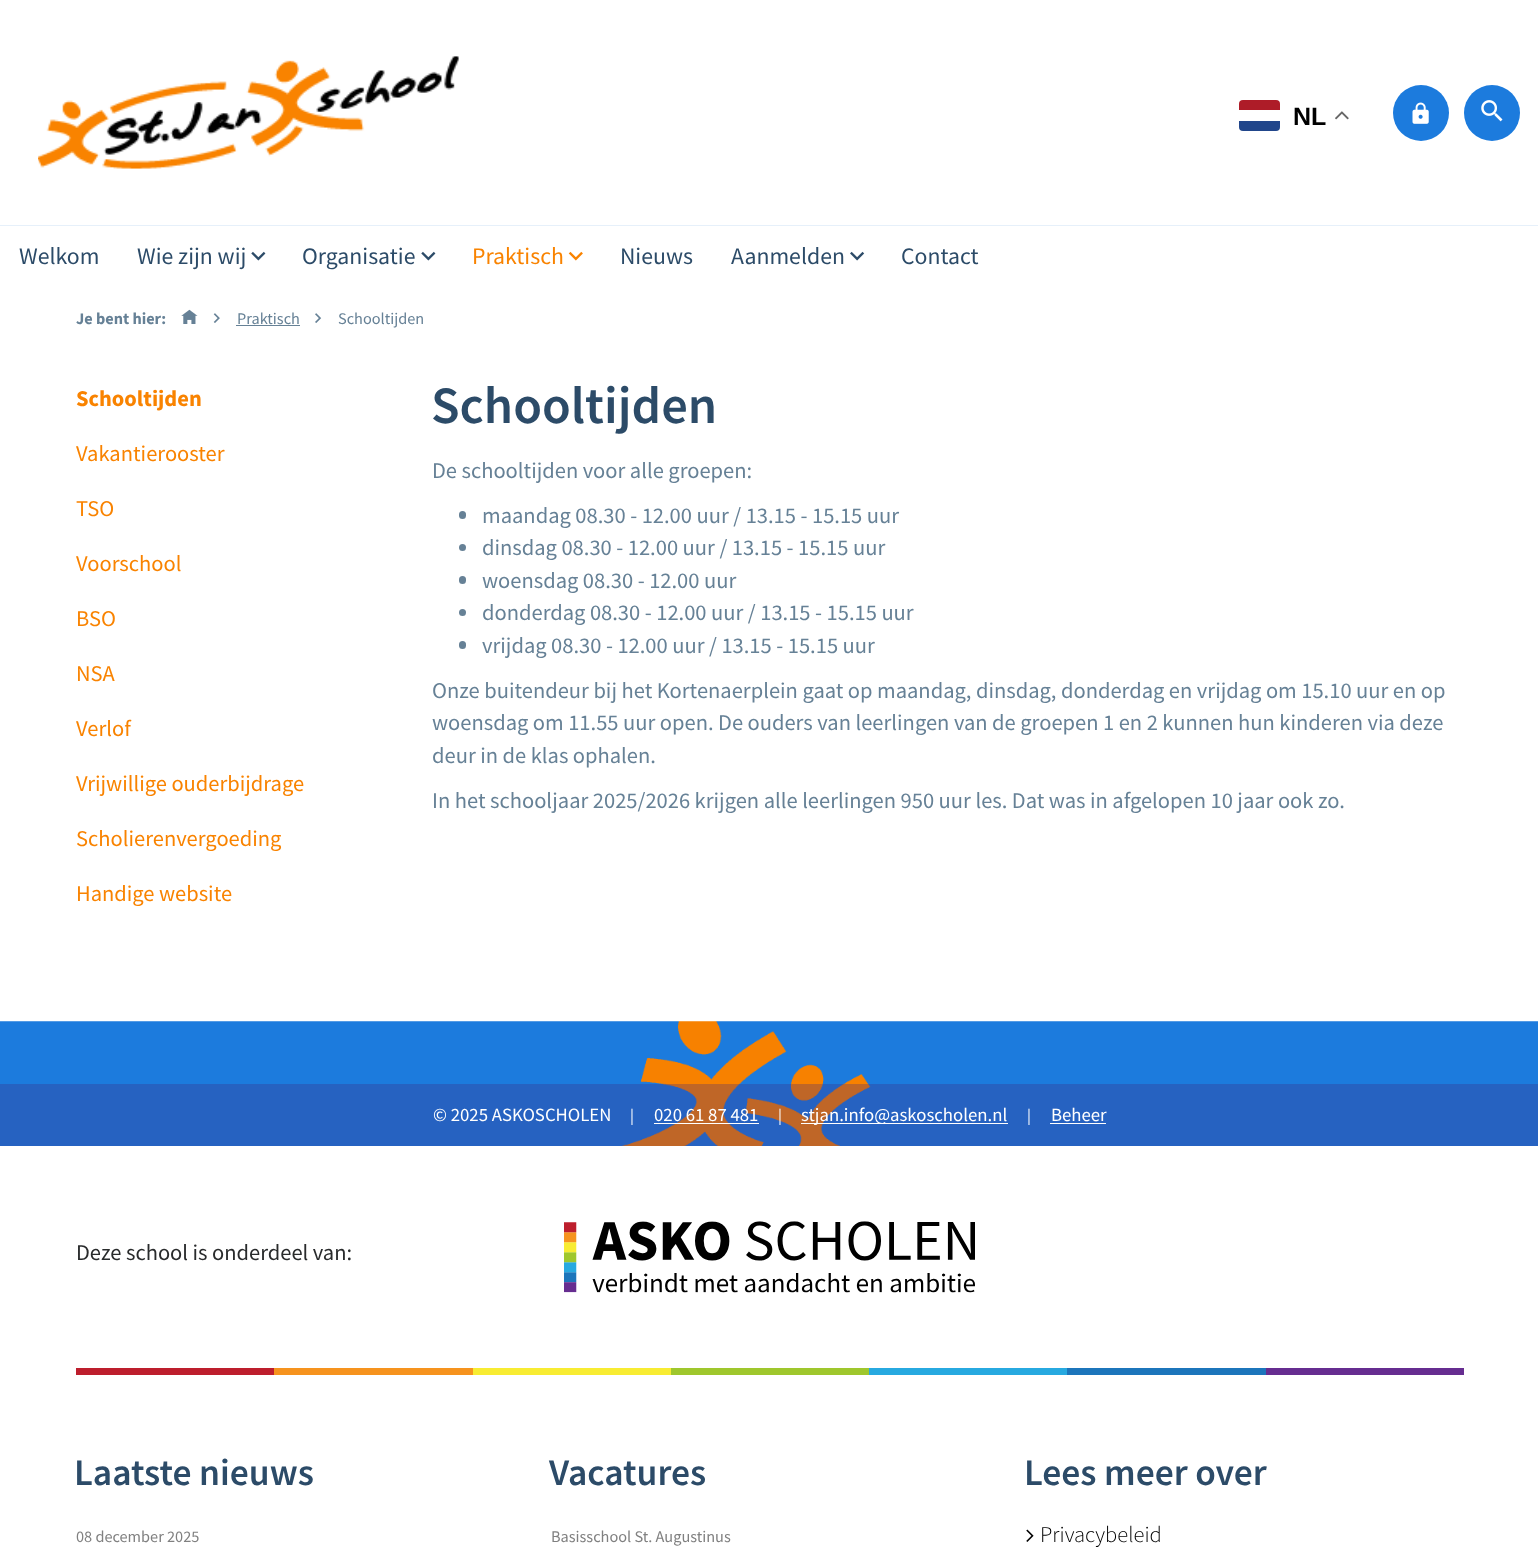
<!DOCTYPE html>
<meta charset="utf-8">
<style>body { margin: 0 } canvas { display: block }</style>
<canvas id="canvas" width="1538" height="1557"></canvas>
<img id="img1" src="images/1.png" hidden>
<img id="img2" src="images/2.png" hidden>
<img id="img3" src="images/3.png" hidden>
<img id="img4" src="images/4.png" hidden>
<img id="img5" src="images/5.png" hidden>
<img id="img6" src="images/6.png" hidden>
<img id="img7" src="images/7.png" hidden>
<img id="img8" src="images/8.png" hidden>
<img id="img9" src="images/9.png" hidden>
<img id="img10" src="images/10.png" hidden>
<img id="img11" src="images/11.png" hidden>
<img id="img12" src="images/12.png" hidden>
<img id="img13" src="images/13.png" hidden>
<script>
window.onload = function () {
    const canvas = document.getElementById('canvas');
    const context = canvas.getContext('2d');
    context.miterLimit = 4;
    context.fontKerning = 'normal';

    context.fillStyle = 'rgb(255, 255, 255)';
    context.fillRect(0, 0, 1538, 1557);
    context.drawImage(document.getElementById('img1'), 0, 1021, 1538, 125);
    context.fillStyle = 'rgba(64, 40, 128, 0.3)';
    context.fillRect(0, 1084, 1538, 62);
    context.fillStyle = 'rgb(33, 70, 139)';
    context.beginPath();
    context.roundRect(1239, 121, 41, 10, [0, 0, 4, 4]);
    context.fill();
    context.fillStyle = 'rgb(174, 28, 40)';
    context.beginPath();
    context.roundRect(1239, 100, 41, 10, [4, 4, 0, 0]);
    context.fill();
    context.drawImage(document.getElementById('img2'), 1335, 111, 14, 9);
    context.fillStyle = 'rgb(255, 255, 255)';
    context.fillRect(654, 1123, 105, 1);
    context.fillRect(801, 1123, 207, 1);
    context.fillRect(1050, 1123, 56, 1);
    context.drawImage(document.getElementById('img3'), 564, 1221, 411, 72);
    context.fillStyle = 'rgb(189, 30, 45)';
    context.fillRect(76, 1368, 198, 7);
    context.fillStyle = 'rgb(246, 147, 30)';
    context.fillRect(274, 1368, 199, 7);
    context.fillStyle = 'rgb(248, 236, 50)';
    context.fillRect(473, 1368, 198, 7);
    context.fillStyle = 'rgb(159, 199, 45)';
    context.fillRect(671, 1368, 198, 7);
    context.fillStyle = 'rgb(39, 169, 224)';
    context.fillRect(869, 1368, 198, 7);
    context.fillStyle = 'rgb(28, 117, 187)';
    context.fillRect(1067, 1368, 199, 7);
    context.fillStyle = 'rgb(102, 45, 144)';
    context.fillRect(1266, 1368, 198, 7);
    context.drawImage(document.getElementById('img4'), 1026, 1529, 8, 13);
    context.drawImage(document.getElementById('img5'), 38, 56, 421, 113);
    context.fillStyle = 'rgb(28, 123, 221)';
    context.beginPath();
    context.arc(1421, 113, 28, 0, 2 * Math.PI);
    context.fill();
    context.drawImage(document.getElementById('img6'), 1412, 102, 17, 22);
    context.beginPath();
    context.arc(1492, 113, 28, 0, 2 * Math.PI);
    context.fill();
    context.drawImage(document.getElementById('img7'), 1481, 100, 22, 22);
    context.fillStyle = 'rgb(230, 240, 250)';
    context.fillRect(0, 225, 1538, 1);
    context.drawImage(document.getElementById('img8'), 251, 251, 15, 10);
    context.drawImage(document.getElementById('img8'), 421, 251, 15, 10);
    context.drawImage(document.getElementById('img9'), 568, 251, 15, 10);
    context.drawImage(document.getElementById('img10'), 850, 251, 15, 10);
    context.drawImage(document.getElementById('img11'), 181, 309, 17, 15);
    context.drawImage(document.getElementById('img12'), 213, 313, 7, 10);
    context.fillStyle = 'rgb(102, 129, 150)';
    context.fillRect(236, 325, 64, 1);
    context.drawImage(document.getElementById('img13'), 315, 313, 7, 10);
    context.beginPath();
    context.roundRect(459, 511, 7, 8, 3.5);
    context.fill();
    context.beginPath();
    context.arc(462.5, 547.5, 3.5, 0, 2 * Math.PI);
    context.fill();
    context.beginPath();
    context.roundRect(459, 576, 7, 8, 3.5);
    context.fill();
    context.beginPath();
    context.arc(462.5, 612.5, 3.5, 0, 2 * Math.PI);
    context.fill();
    context.beginPath();
    context.roundRect(459, 641, 7, 8, 3.5);
    context.fill();
    context.font = 'bold 25px Liberation Sans';
    context.fillStyle = 'rgb(0, 0, 0)';
    context.fillText('NL', 1293, 125);
    context.font = '18.75px Source Sans Pro';
    context.fillStyle = 'rgb(255, 255, 255)';
    context.fillText('© 2025 ASKOSCHOLEN', 433, 1121);
    context.font = '16.25px Source Sans Pro';
    context.fillText('|', 630, 1121);
    context.font = '18.75px Source Sans Pro';
    context.fillText('020 61 87 481', 654, 1121);
    context.font = '16.25px Source Sans Pro';
    context.fillText('|', 778, 1121);
    context.font = '18.75px Source Sans Pro';
    context.fillText('stjan.info@askoscholen.nl', 801, 1121);
    context.font = '16.25px Source Sans Pro';
    context.fillText('|', 1027, 1121);
    context.font = '18.75px Source Sans Pro';
    context.fillText('Beheer', 1051, 1121);
    context.font = '22.5px Source Sans Pro';
    context.fillStyle = 'rgb(41, 43, 44)';
    context.fillText('Deze school is onderdeel van:', 76, 1260);
    context.font = '600 37.5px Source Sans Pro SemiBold';
    context.fillStyle = 'rgb(44, 75, 104)';
    context.fillText('Laatste nieuws', 74, 1485);
    context.font = '16.25px Source Sans Pro';
    context.fillStyle = 'rgb(128, 128, 128)';
    context.fillText('08 december 2025', 76, 1542);
    context.font = '600 37.5px Source Sans Pro SemiBold';
    context.fillStyle = 'rgb(44, 75, 104)';
    context.fillText('Vacatures', 549, 1485);
    context.font = '16.25px Source Sans Pro';
    context.fillStyle = 'rgb(128, 128, 128)';
    context.fillText('Basisschool St. Augustinus', 551, 1542);
    context.font = '600 37.5px Source Sans Pro SemiBold';
    context.fillStyle = 'rgb(44, 75, 104)';
    context.fillText('Lees meer over', 1024, 1485);
    context.font = '300 22.5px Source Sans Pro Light';
    context.fillStyle = 'rgb(0, 0, 0)';
    context.fillText('Privacybeleid', 1040, 1542);
    context.font = '23.75px Source Sans Pro';
    context.fillStyle = 'rgb(44, 75, 104)';
    context.fillText('Welkom', 19, 264);
    context.fillText('Wie zijn wij', 137, 264);
    context.fillText('Organisatie', 302, 264);
    context.fillStyle = 'rgb(249, 131, 0)';
    context.fillText('Praktisch', 472, 264);
    context.fillStyle = 'rgb(44, 75, 104)';
    context.fillText('Nieuws', 620, 264);
    context.fillText('Aanmelden', 731, 264);
    context.fillText('Contact', 901, 264);
    context.font = 'bold 16.25px Source Sans Pro';
    context.fillStyle = 'rgb(102, 129, 150)';
    context.fillText('Je bent hier:', 76, 324);
    context.font = '16.25px Source Sans Pro';
    context.fillText('Praktisch', 237, 324);
    context.fillText('Schooltijden', 338, 324);
    context.font = 'bold 22.5px Source Sans Pro';
    context.fillStyle = 'rgb(249, 131, 0)';
    context.fillText('Schooltijden', 76, 406);
    context.font = '22.5px Source Sans Pro';
    context.fillText('Vakantierooster', 76, 461);
    context.fillText('TSO', 76, 516);
    context.fillText('Voorschool', 76, 571);
    context.fillText('BSO', 76, 626);
    context.fillText('NSA', 76, 681);
    context.fillText('Verlof', 76, 736);
    context.fillText('Vrijwillige ouderbijdrage', 76, 791);
    context.fillText('Scholierenvergoeding', 76, 846);
    context.fillText('Handige website', 76, 901);
    context.font = '600 52.5px Source Sans Pro SemiBold';
    context.fillStyle = 'rgb(44, 75, 104)';
    context.fillText('Schooltijden', 431, 423);
    context.font = '22.5px Source Sans Pro';
    context.fillStyle = 'rgb(102, 129, 150)';
    context.fillText('De schooltijden voor alle groepen:', 432, 478);
    context.fillText('maandag 08.30 - 12.00 uur / 13.15 - 15.15 uur', 482, 523);
    context.fillText('dinsdag 08.30 - 12.00 uur / 13.15 - 15.15 uur', 482, 555);
    context.fillText('woensdag 08.30 - 12.00 uur', 482, 588);
    context.fillText('donderdag 08.30 - 12.00 uur / 13.15 - 15.15 uur', 482, 620);
    context.fillText('vrijdag 08.30 - 12.00 uur / 13.15 - 15.15 uur', 482, 653);
    context.fillText('Onze buitendeur bij het Kortenaerplein gaat op maandag, dinsdag, donderdag en vrijdag om 15.10 uur en op', 432, 698);
    context.fillText('woensdag om 11.55 uur open. De ouders van leerlingen van de groepen 1 en 2 kunnen hun kinderen via deze', 432, 730);
    context.fillText('deur in de klas ophalen.', 432, 763);
    context.fillText('In het schooljaar 2025/2026 krijgen alle leerlingen 950 uur les. Dat was in afgelopen 10 jaar ook zo.', 432, 808);
};
</script>
